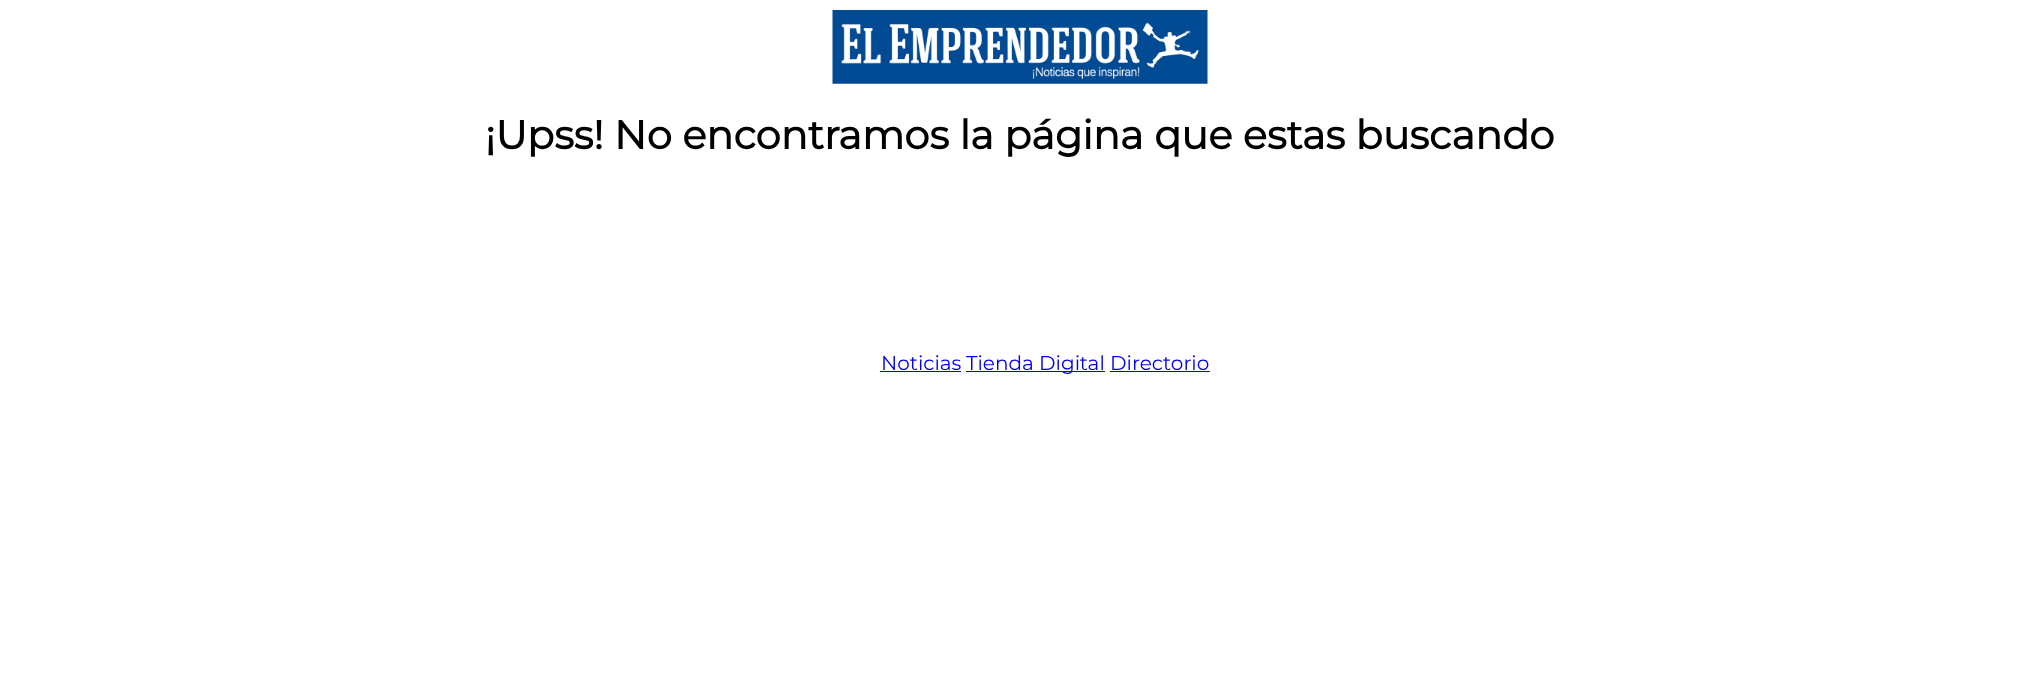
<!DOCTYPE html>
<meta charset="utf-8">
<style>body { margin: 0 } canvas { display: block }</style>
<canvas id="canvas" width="2040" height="683"></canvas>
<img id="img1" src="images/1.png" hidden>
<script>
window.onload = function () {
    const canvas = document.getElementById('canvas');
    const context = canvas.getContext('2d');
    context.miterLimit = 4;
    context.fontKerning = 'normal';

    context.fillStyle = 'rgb(255, 255, 255)';
    context.fillRect(0, 0, 2040, 683);
    context.drawImage(document.getElementById('img1'), 832, 10, 376, 74);
    context.fillStyle = 'rgb(0, 0, 238)';
    context.fillRect(880, 371, 81, 1);
    context.fillRect(966, 371, 139, 1);
    context.fillRect(1110, 371, 100, 1);
    context.font = 'bold 40px Montserrat';
    context.fillStyle = 'rgb(0, 0, 0)';
    context.fillText('¡Upss! No encontramos la página que estas buscando', 485, 149);
    context.font = '100 20px Montserrat';
    context.fillStyle = 'rgb(0, 0, 238)';
    context.fillText('Noticias', 881, 370);
    context.fillText('Tienda Digital Directorio', 966, 370);
};
</script>
